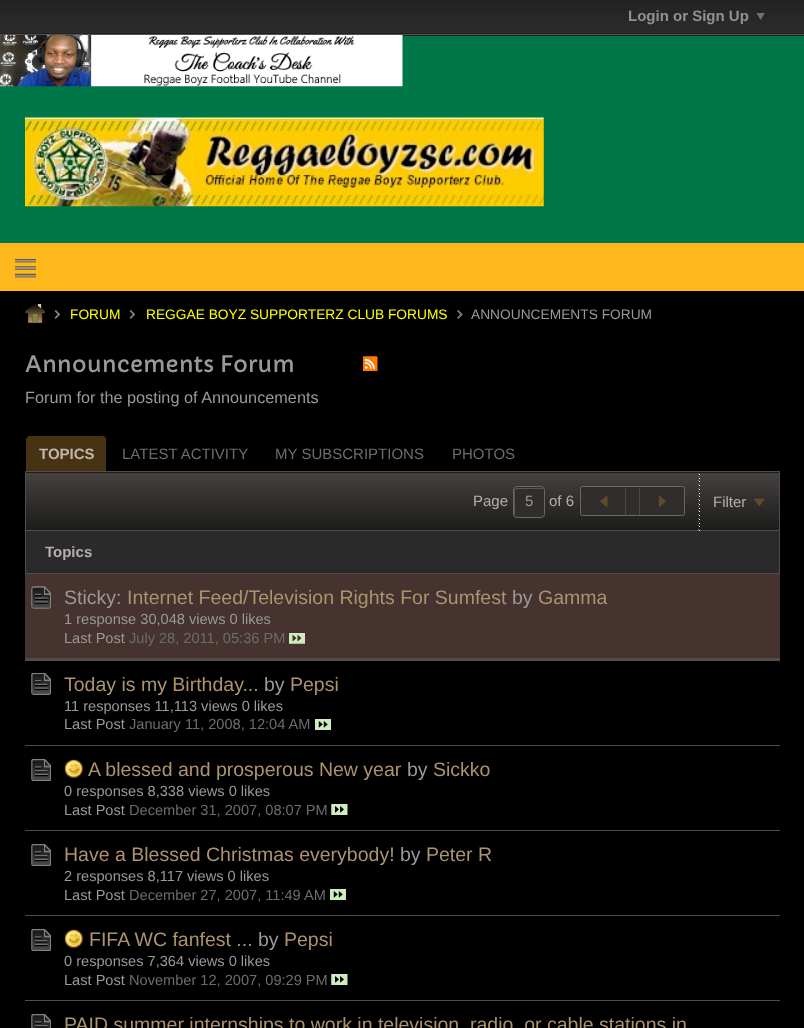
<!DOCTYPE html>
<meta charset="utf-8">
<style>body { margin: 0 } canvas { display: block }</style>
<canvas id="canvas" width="804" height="1028"></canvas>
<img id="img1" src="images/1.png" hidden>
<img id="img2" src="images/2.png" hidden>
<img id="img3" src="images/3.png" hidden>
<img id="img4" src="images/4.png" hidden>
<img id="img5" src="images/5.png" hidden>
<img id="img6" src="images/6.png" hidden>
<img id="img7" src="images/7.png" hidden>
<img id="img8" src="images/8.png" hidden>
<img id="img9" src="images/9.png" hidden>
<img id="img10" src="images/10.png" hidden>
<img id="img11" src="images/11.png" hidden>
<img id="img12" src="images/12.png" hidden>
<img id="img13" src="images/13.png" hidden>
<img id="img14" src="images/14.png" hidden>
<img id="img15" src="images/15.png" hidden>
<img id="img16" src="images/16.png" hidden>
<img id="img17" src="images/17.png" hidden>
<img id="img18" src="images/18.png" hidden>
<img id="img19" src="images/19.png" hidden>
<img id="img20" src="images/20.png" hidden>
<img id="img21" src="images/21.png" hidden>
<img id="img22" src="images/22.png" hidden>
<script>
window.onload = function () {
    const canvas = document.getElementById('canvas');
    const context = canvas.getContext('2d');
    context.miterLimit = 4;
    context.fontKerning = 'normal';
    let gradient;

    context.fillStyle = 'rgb(0, 119, 73)';
    context.fillRect(0, 0, 804, 1028);
    gradient = context.createLinearGradient(403, 0, 403, 35);
    gradient.addColorStop(0, 'rgb(34, 34, 34)');
    gradient.addColorStop(1, 'rgb(43, 45, 44)');
    context.fillStyle = gradient;
    context.fillRect(0, 0, 804, 33);
    context.drawImage(document.getElementById('img1'), 756, 13, 9, 7);
    context.fillStyle = 'rgb(32, 32, 32)';
    context.fillRect(0, 33, 804, 3);
    context.fillStyle = 'rgb(83, 82, 81)';
    context.fillRect(0, 34, 804, 1);
    context.drawImage(document.getElementById('img2'), 0, 35, 403, 52);
    context.drawImage(document.getElementById('img3'), 25, 117, 519, 90);
    context.fillStyle = 'rgb(255, 184, 28)';
    context.fillRect(0, 243, 804, 48);
    context.drawImage(document.getElementById('img4'), 15, 259, 21, 19);
    context.fillStyle = 'rgb(0, 0, 0)';
    context.fillRect(0, 291, 804, 737);
    context.drawImage(document.getElementById('img5'), 25, 304, 20, 19);
    context.drawImage(document.getElementById('img6'), 54, 310, 6, 9);
    context.drawImage(document.getElementById('img6'), 129, 310, 6, 9);
    context.drawImage(document.getElementById('img7'), 457, 310, 6, 9);
    context.drawImage(document.getElementById('img8'), 363, 356, 15, 15);
    context.fillStyle = 'rgb(72, 50, 20)';
    context.beginPath();
    context.roundRect(25, 435, 83, 36, [5, 5, 0, 0]);
    context.fill();
    context.fillStyle = 'rgb(0, 0, 0)';
    context.beginPath();
    context.moveTo(30, 435);
    context.lineTo(102, 435);
    context.bezierCurveTo(105, 435, 108, 437, 108, 440);
    context.lineTo(108, 471);
    context.lineTo(25, 471);
    context.lineTo(25, 440);
    context.bezierCurveTo(25, 437, 27, 435, 30, 435);
    context.closePath();
    context.moveTo(30, 436);
    context.lineTo(102, 436);
    context.bezierCurveTo(105, 436, 106, 438, 106, 440);
    context.lineTo(106, 471);
    context.lineTo(26, 471);
    context.lineTo(26, 440);
    context.bezierCurveTo(26, 438, 28, 436, 30, 436);
    context.closePath();
    context.fill('evenodd');
    gradient = context.createLinearGradient(403, 415, 403, 473);
    gradient.addColorStop(0, 'rgb(69, 66, 64)');
    gradient.addColorStop(1, 'rgb(28, 28, 27)');
    context.fillStyle = gradient;
    context.fillRect(25, 472, 755, 1);
    gradient = context.createLinearGradient(403, 472, 403, 530);
    gradient.addColorStop(0, 'rgb(69, 66, 64)');
    gradient.addColorStop(1, 'rgb(28, 28, 27)');
    context.fillStyle = gradient;
    context.fillRect(26, 473, 753, 57);
    context.strokeStyle = 'rgb(81, 76, 72)';
    context.strokeRect(25.5, 471.5, 754, 59);
    context.fillStyle = 'rgb(48, 46, 45)';
    context.beginPath();
    context.roundRect(513, 486, 32, 32, 4);
    context.fill();
    context.fillStyle = 'rgb(89, 88, 87)';
    context.beginPath();
    context.moveTo(518, 489);
    context.lineTo(542, 489);
    context.lineTo(543.5, 489.5);
    context.bezierCurveTo(543.5, 488.5, 542.5, 488, 541.5, 488);
    context.lineTo(516.5, 488);
    context.bezierCurveTo(515, 488, 514, 489, 514, 490.5);
    context.lineTo(514, 513.5);
    context.bezierCurveTo(514, 514.5, 514.5, 515, 515, 515.5);
    context.lineTo(515, 495);
    context.bezierCurveTo(515, 492, 514, 489, 518, 489);
    context.closePath();
    context.fill();
    context.beginPath();
    context.roundRect(513.5, 486.5, 31, 31, 3.5);
    context.strokeStyle = 'rgb(108, 103, 100)';
    context.stroke();
    context.fillStyle = 'rgb(48, 46, 45)';
    context.beginPath();
    context.roundRect(580.5, 486.5, 104, 29, 2);
    context.fill();
    context.stroke();
    context.fillStyle = 'rgb(77, 73, 70)';
    context.fillRect(625, 488, 1, 27);
    context.drawImage(document.getElementById('img9'), 600, 495, 8, 13);
    context.fillRect(639, 488, 1, 27);
    context.drawImage(document.getElementById('img10'), 659, 495, 7, 12);
    context.drawImage(document.getElementById('img11'), 698, 473, 1, 57);
    context.drawImage(document.getElementById('img12'), 699, 474, 1, 57);
    context.drawImage(document.getElementById('img13'), 754, 498, 11, 8);
    context.fillStyle = 'rgb(42, 42, 42)';
    context.fillRect(26, 531, 753, 42);
    context.fillStyle = 'rgb(81, 76, 72)';
    context.fillRect(779, 531, 1, 42);
    context.fillRect(25, 531, 1, 42);
    context.fillStyle = 'rgb(70, 50, 47)';
    context.fillRect(25, 574, 755, 84);
    context.drawImage(document.getElementById('img14'), 31, 586, 20, 23);
    context.fillStyle = 'rgb(81, 76, 72)';
    context.fillRect(25, 573, 755, 1);
    context.drawImage(document.getElementById('img15'), 289, 633, 16, 11);
    context.drawImage(document.getElementById('img16'), 31, 673, 20, 22);
    context.fillRect(25, 658, 755, 3);
    context.drawImage(document.getElementById('img17'), 315, 719, 16, 11);
    context.drawImage(document.getElementById('img18'), 31, 759, 20, 22);
    context.fillRect(25, 745, 755, 1);
    context.drawImage(document.getElementById('img19'), 64, 759, 19, 19);
    context.drawImage(document.getElementById('img20'), 331, 804, 17, 11);
    context.drawImage(document.getElementById('img21'), 31, 844, 20, 22);
    context.fillRect(25, 830, 755, 1);
    context.drawImage(document.getElementById('img17'), 330, 889, 16, 11);
    context.drawImage(document.getElementById('img21'), 31, 929, 20, 22);
    context.fillRect(25, 915, 755, 1);
    context.drawImage(document.getElementById('img19'), 64, 929, 19, 19);
    context.drawImage(document.getElementById('img20'), 331, 974, 17, 11);
    context.drawImage(document.getElementById('img22'), 31, 1014, 20, 14);
    context.fillRect(25, 1000, 755, 1);
    context.font = 'bold 15px Liberation Sans';
    context.fillStyle = 'rgb(147, 145, 144)';
    context.fillText('Login or Sign Up', 628, 21);
    context.font = '13.75px Liberation Sans';
    context.fillStyle = 'rgb(255, 255, 0)';
    context.fillText('FORUM', 70, 319);
    context.fillText('REGGAE BOYZ SUPPORTERZ CLUB FORUMS', 146, 319);
    context.fillStyle = 'rgb(154, 153, 153)';
    context.fillText('ANNOUNCEMENTS FORUM', 471, 319);
    context.font = '22.5px Capriola';
    context.fillText('Announcements Forum', 25, 372);
    context.font = '16.25px Liberation Sans';
    context.fillText('Forum for the posting of Announcements', 25, 403);
    context.font = 'bold 15px Liberation Sans';
    context.fillStyle = 'rgb(193, 184, 171)';
    context.fillText('TOPICS', 39, 459);
    context.font = '15px Liberation Sans';
    context.fillStyle = 'rgb(106, 109, 111)';
    context.fillText('LATEST ACTIVITY', 122, 459);
    context.fillText('MY SUBSCRIPTIONS', 275, 459);
    context.fillText('PHOTOS', 452, 459);
    context.fillStyle = 'rgb(182, 175, 173)';
    context.fillText('Page', 473, 506);
    context.fillStyle = 'rgb(154, 153, 153)';
    context.fillText('5', 525, 506);
    context.fillStyle = 'rgb(182, 175, 173)';
    context.fillText('of 6', 549, 506);
    context.fillText('Filter', 713, 507);
    context.font = 'bold 15px Liberation Sans';
    context.fillText('Topics', 45, 557);
    context.font = '19.5px Liberation Sans';
    context.fillStyle = 'rgb(154, 153, 153)';
    context.fillText('Sticky:', 64, 604);
    context.fillStyle = 'rgb(173, 147, 110)';
    context.fillText('Internet Feed/Television Rights For Sumfest', 127, 604);
    context.fillStyle = 'rgb(154, 153, 153)';
    context.fillText('by', 512, 604);
    context.fillStyle = 'rgb(173, 147, 110)';
    context.fillText('Gamma', 538, 604);
    context.font = '14.6px Liberation Sans';
    context.fillStyle = 'rgb(154, 153, 153)';
    context.fillText('1 response 30,048 views 0 likes', 64, 624);
    context.fillText('Last Post', 64, 643);
    context.fillStyle = 'rgb(106, 109, 111)';
    context.fillText('July 28, 2011, 05:36 PM', 129, 643);
    context.font = '19.5px Liberation Sans';
    context.fillStyle = 'rgb(173, 147, 110)';
    context.fillText('Today is my Birthday...', 64, 691);
    context.fillStyle = 'rgb(154, 153, 153)';
    context.fillText('by', 264, 691);
    context.fillStyle = 'rgb(173, 147, 110)';
    context.fillText('Pepsi', 290, 691);
    context.font = '14.6px Liberation Sans';
    context.fillStyle = 'rgb(154, 153, 153)';
    context.fillText('11 responses 11,113 views 0 likes', 64, 711);
    context.fillText('Last Post', 64, 729);
    context.fillStyle = 'rgb(106, 109, 111)';
    context.fillText('January 11, 2008, 12:04 AM', 129, 729);
    context.font = '19.5px Liberation Sans';
    context.fillStyle = 'rgb(173, 147, 110)';
    context.fillText('A blessed and prosperous New year', 88, 776);
    context.fillStyle = 'rgb(154, 153, 153)';
    context.fillText('by', 407, 776);
    context.fillStyle = 'rgb(173, 147, 110)';
    context.fillText('Sickko', 433, 776);
    context.font = '14.6px Liberation Sans';
    context.fillStyle = 'rgb(154, 153, 153)';
    context.fillText('0 responses 8,338 views 0 likes', 64, 796);
    context.fillText('Last Post', 64, 815);
    context.fillStyle = 'rgb(106, 109, 111)';
    context.fillText('December 31, 2007, 08:07 PM', 129, 815);
    context.font = '19.5px Liberation Sans';
    context.fillStyle = 'rgb(173, 147, 110)';
    context.fillText('Have a Blessed Christmas everybody!', 64, 861);
    context.fillStyle = 'rgb(154, 153, 153)';
    context.fillText('by', 400, 861);
    context.fillStyle = 'rgb(173, 147, 110)';
    context.fillText('Peter R', 426, 861);
    context.font = '14.6px Liberation Sans';
    context.fillStyle = 'rgb(154, 153, 153)';
    context.fillText('2 responses 8,117 views 0 likes', 64, 881);
    context.fillText('Last Post', 64, 900);
    context.fillStyle = 'rgb(106, 109, 111)';
    context.fillText('December 27, 2007, 11:49 AM', 129, 900);
    context.font = '19.5px Liberation Sans';
    context.fillStyle = 'rgb(173, 147, 110)';
    context.fillText('FIFA WC fanfest ...', 89, 946);
    context.fillStyle = 'rgb(154, 153, 153)';
    context.fillText('by', 258, 946);
    context.fillStyle = 'rgb(173, 147, 110)';
    context.fillText('Pepsi', 284, 946);
    context.font = '14.6px Liberation Sans';
    context.fillStyle = 'rgb(154, 153, 153)';
    context.fillText('0 responses 7,364 views 0 likes', 64, 966);
    context.fillText('Last Post', 64, 985);
    context.fillStyle = 'rgb(106, 109, 111)';
    context.fillText('November 12, 2007, 09:29 PM', 129, 985);
    context.font = '19.5px Liberation Sans';
    context.fillStyle = 'rgb(173, 147, 110)';
    context.fillText('PAID summer internships to work in television, radio, or cable stations in', 64, 1031);
};
</script>
